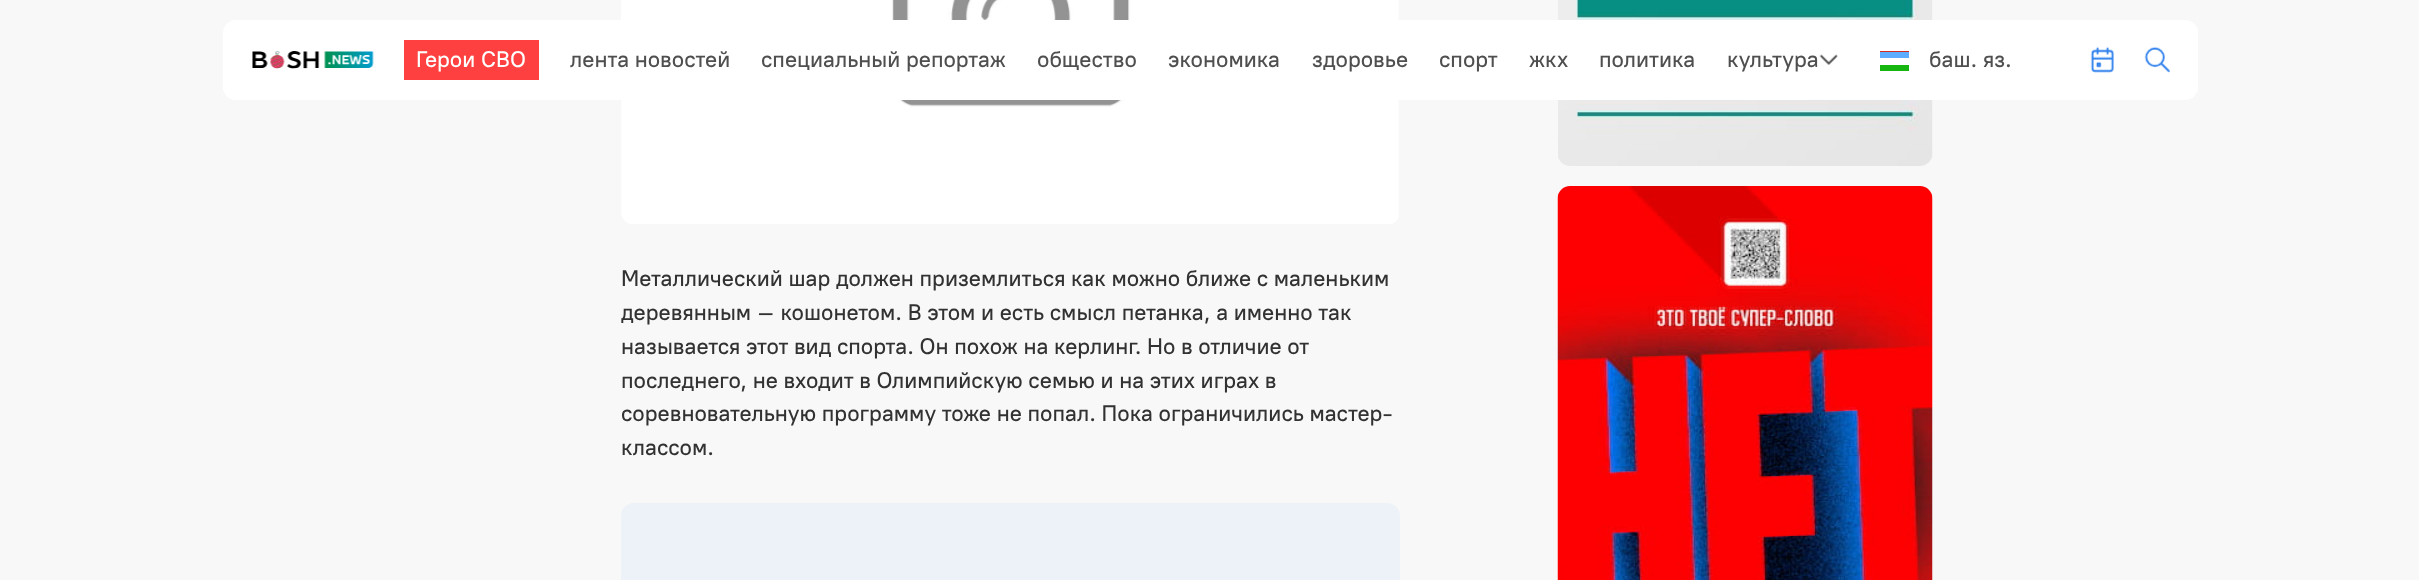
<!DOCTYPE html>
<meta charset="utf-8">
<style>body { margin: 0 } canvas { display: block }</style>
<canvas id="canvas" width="2419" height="580"></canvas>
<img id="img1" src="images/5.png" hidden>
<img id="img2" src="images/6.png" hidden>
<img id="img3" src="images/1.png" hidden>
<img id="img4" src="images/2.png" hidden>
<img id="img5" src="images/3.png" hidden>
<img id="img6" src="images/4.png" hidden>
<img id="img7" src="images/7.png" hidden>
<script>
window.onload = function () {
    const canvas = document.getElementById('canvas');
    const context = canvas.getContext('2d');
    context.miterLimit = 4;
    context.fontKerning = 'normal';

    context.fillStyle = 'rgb(248, 248, 248)';
    context.fillRect(0, 0, 2419, 580);
    context.drawImage(document.getElementById('img1'), 621, 0, 778, 224);
    context.drawImage(document.getElementById('img2'), 1558, 0, 375, 166);
    context.fillStyle = 'rgb(255, 255, 255)';
    context.beginPath();
    context.roundRect(223, 20, 1975, 80, 13);
    context.fill();
    context.drawImage(document.getElementById('img3'), 252, 51, 122, 18);
    context.fillStyle = 'rgb(255, 64, 64)';
    context.fillRect(404, 40, 135, 40);
    context.drawImage(document.getElementById('img4'), 1819, 54, 19, 11);
    context.fillStyle = 'rgb(92, 173, 255)';
    context.fillRect(1880, 52, 29, 6);
    context.fillStyle = 'rgb(22, 181, 15)';
    context.fillRect(1880, 65, 29, 6);
    context.fillStyle = 'rgb(213, 43, 30)';
    context.fillRect(1880, 51, 29, 1);
    context.drawImage(document.getElementById('img5'), 2090, 46, 24, 27);
    context.drawImage(document.getElementById('img6'), 2144, 46, 26, 27);
    context.fillStyle = 'rgb(237, 242, 248)';
    context.beginPath();
    context.roundRect(621, 503, 779, 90, 13);
    context.fill();
    context.drawImage(document.getElementById('img7'), 1557, 186, 376, 394);
    context.font = '500 22.5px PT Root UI';
    context.fillStyle = 'rgb(255, 255, 255)';
    context.fillText('Герои СВО', 416, 67);
    context.fillStyle = 'rgb(79, 79, 79)';
    context.fillText('лента новостей', 570, 67);
    context.fillText('специальный репортаж', 761, 67);
    context.fillText('общество', 1037, 67);
    context.fillText('экономика', 1168, 67);
    context.fillText('здоровье', 1312, 67);
    context.fillText('спорт', 1439, 67);
    context.fillText('жкх', 1529, 67);
    context.fillText('политика', 1599, 67);
    context.fillText('культура', 1727, 67);
    context.fillText('баш. яз.', 1929, 67);
    context.fillStyle = 'rgb(50, 50, 50)';
    context.fillText('Металлический шар должен приземлиться как можно ближе с маленьким', 621, 286);
    context.fillText('деревянным – кошонетом. В этом и есть смысл петанка, а именно так', 621, 320);
    context.fillText('называется этот вид спорта. Он похож на керлинг. Но в отличие от', 621, 354);
    context.fillText('последнего, не входит в Олимпийскую семью и на этих играх в', 621, 388);
    context.fillText('соревновательную программу тоже не попал. Пока ограничились мастер-', 621, 421);
    context.fillText('классом.', 621, 455);
};
</script>
